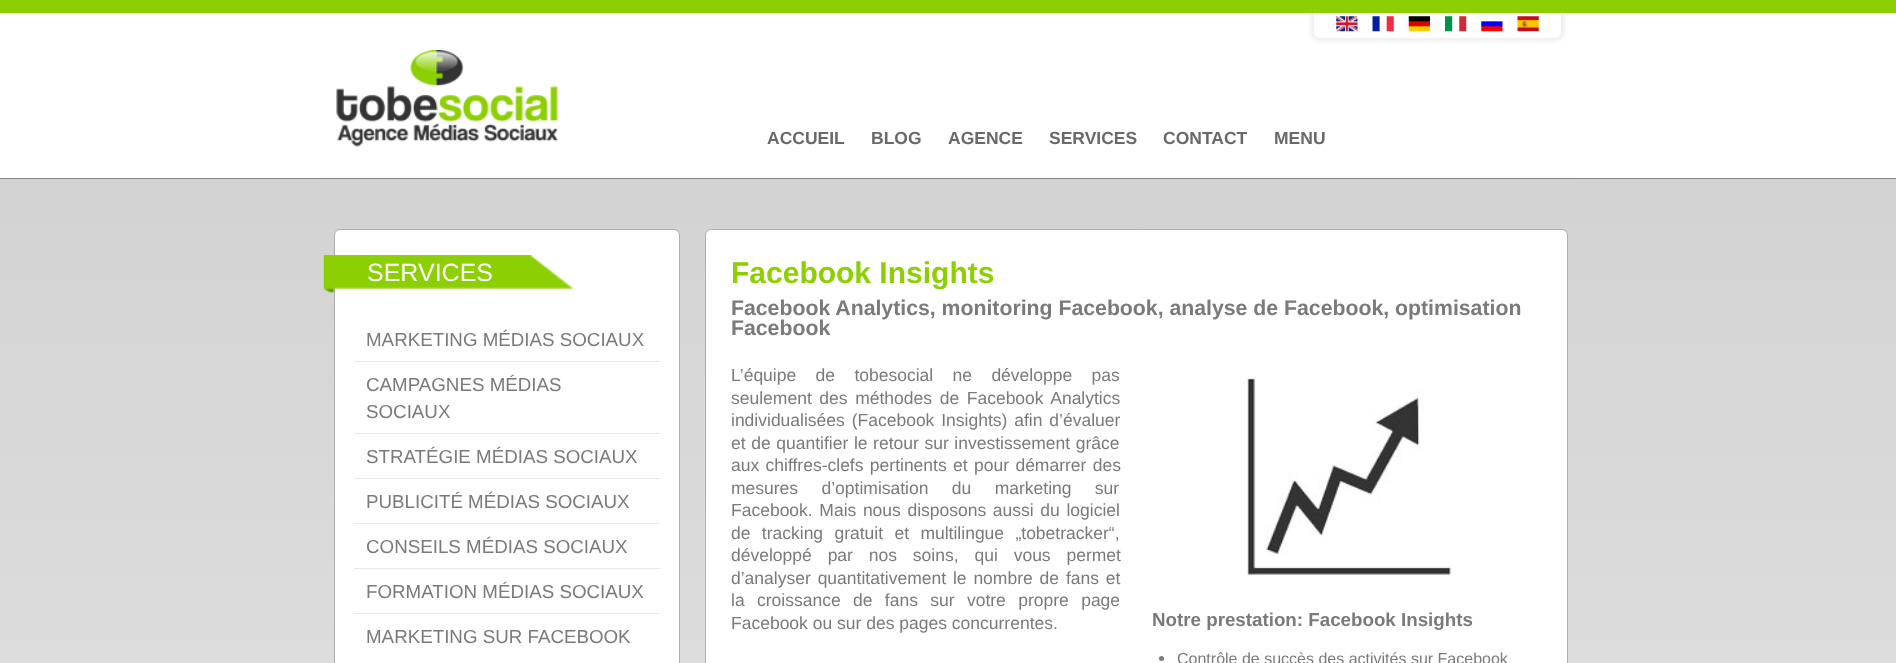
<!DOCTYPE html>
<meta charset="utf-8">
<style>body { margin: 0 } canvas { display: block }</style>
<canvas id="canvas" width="1896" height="663"></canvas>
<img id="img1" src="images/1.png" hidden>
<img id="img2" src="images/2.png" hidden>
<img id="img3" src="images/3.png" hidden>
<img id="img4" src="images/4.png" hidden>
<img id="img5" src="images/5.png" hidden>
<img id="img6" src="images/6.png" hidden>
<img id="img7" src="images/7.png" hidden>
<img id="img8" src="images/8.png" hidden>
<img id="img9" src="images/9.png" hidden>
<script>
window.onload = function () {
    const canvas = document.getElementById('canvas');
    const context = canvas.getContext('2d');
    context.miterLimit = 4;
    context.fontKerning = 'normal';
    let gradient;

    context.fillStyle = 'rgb(140, 207, 3)';
    context.fillRect(0, 0, 1896, 663);
    context.fillStyle = 'rgb(255, 255, 255)';
    context.fillRect(0, 13, 1896, 165);
    context.save();
    context.beginPath();
    context.rect(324, 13, 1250, 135);
    context.clip();
    context.beginPath();
    context.moveTo(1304, 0);
    context.lineTo(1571, 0);
    context.lineTo(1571, 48);
    context.lineTo(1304, 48);
    context.closePath();
    context.moveTo(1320, -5);
    context.lineTo(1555, -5);
    context.bezierCurveTo(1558.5, -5, 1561, -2.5, 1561, 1);
    context.lineTo(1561, 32);
    context.bezierCurveTo(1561, 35.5, 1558.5, 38, 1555, 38);
    context.lineTo(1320, 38);
    context.bezierCurveTo(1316.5, 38, 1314, 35.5, 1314, 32);
    context.lineTo(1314, 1);
    context.bezierCurveTo(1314, -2.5, 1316.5, -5, 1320, -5);
    context.closePath();
    context.clip('evenodd');
    context.fillStyle = 'rgb(238, 236, 236)';
    context.filter = 'blur(2px)';
    context.beginPath();
    context.roundRect(1311, -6, 253, 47, 9);
    context.fill();
    context.filter = 'none';
    context.restore();
    context.drawImage(document.getElementById('img1'), 1336, 16, 22, 16);
    context.drawImage(document.getElementById('img2'), 1372, 16, 22, 16);
    context.drawImage(document.getElementById('img3'), 1408, 16, 22, 16);
    context.drawImage(document.getElementById('img4'), 1445, 16, 22, 16);
    context.drawImage(document.getElementById('img5'), 1481, 21, 22, 11);
    context.drawImage(document.getElementById('img6'), 1517, 16, 22, 16);
    context.drawImage(document.getElementById('img7'), 336, 50, 222, 97);
    context.fillStyle = 'rgb(252, 252, 252)';
    context.fillRect(324, 176, 1250, 1);
    gradient = context.createLinearGradient(948, 179, 948, 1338);
    gradient.addColorStop(0, 'rgb(212, 211, 211)');
    gradient.addColorStop(1, 'rgb(234, 233, 233)');
    context.fillStyle = gradient;
    context.fillRect(0, 179, 1896, 484);
    context.fillStyle = 'rgb(136, 136, 136)';
    context.fillRect(0, 178, 1896, 1);
    context.fillStyle = 'rgb(255, 255, 255)';
    context.beginPath();
    context.roundRect(334.5, 229.5, 345, 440, 5.5);
    context.fill();
    context.strokeStyle = 'rgb(175, 175, 175)';
    context.stroke();
    context.drawImage(document.getElementById('img8'), 323, 255, 251, 38);
    context.fillStyle = 'rgb(231, 231, 231)';
    context.fillRect(354, 361, 306, 1);
    context.fillRect(354, 433, 306, 1);
    context.fillRect(354, 478, 306, 1);
    context.fillRect(354, 523, 306, 1);
    context.fillRect(354, 568, 306, 1);
    context.fillRect(354, 613, 306, 1);
    context.fillStyle = 'rgb(255, 255, 255)';
    context.beginPath();
    context.roundRect(705.5, 229.5, 862, 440, 5.5);
    context.fill();
    context.stroke();
    context.drawImage(document.getElementById('img9'), 1246, 377, 206, 199);
    context.fillStyle = 'rgb(122, 122, 122)';
    context.beginPath();
    context.arc(1161.5, 658.5, 2.5, 0, 2 * Math.PI);
    context.fill();
    context.font = 'bold 17.5px Liberation Sans';
    context.fillStyle = 'rgb(105, 105, 105)';
    context.fillText('ACCUEIL', 767, 144);
    context.fillText('BLOG', 871, 144);
    context.fillText('AGENCE', 948, 144);
    context.fillText('SERVICES', 1049, 144);
    context.fillText('CONTACT', 1163, 144);
    context.fillText('MENU', 1274, 144);
    context.font = '25px Liberation Sans';
    context.fillStyle = 'rgb(255, 255, 255)';
    context.fillText('SERVICES', 367, 281);
    context.font = '18.75px Liberation Sans';
    context.fillStyle = 'rgb(122, 122, 122)';
    context.fillText('MARKETING MÉDIAS SOCIAUX', 366, 346);
    context.fillText('CAMPAGNES MÉDIAS', 366, 391);
    context.fillText('SOCIAUX', 366, 418);
    context.fillText('STRATÉGIE MÉDIAS SOCIAUX', 366, 463);
    context.fillText('PUBLICITÉ MÉDIAS SOCIAUX', 366, 508);
    context.fillText('CONSEILS MÉDIAS SOCIAUX', 366, 553);
    context.fillText('FORMATION MÉDIAS SOCIAUX', 366, 598);
    context.fillText('MARKETING SUR FACEBOOK', 366, 643);
    context.font = 'bold 30px Liberation Sans';
    context.fillStyle = 'rgb(140, 207, 3)';
    context.fillText('Facebook Insights', 731, 283);
    context.font = 'bold 21.25px Liberation Sans';
    context.fillStyle = 'rgb(122, 122, 122)';
    context.fillText('Facebook Analytics, monitoring Facebook, analyse de Facebook, optimisation', 731, 315);
    context.fillText('Facebook', 731, 335);
    context.wordSpacing = '14.5px';
    context.font = '17.5px Liberation Sans';
    context.fillText('L’équipe de tobesocial ne développe pas', 731, 381);
    context.wordSpacing = '2.75px';
    context.fillText('seulement des méthodes de Facebook Analytics', 731, 404);
    context.wordSpacing = '2px';
    context.fillText('individualisées (Facebook Insights) afin d’évaluer', 731, 426);
    context.wordSpacing = '0.75px';
    context.fillText('et de quantifier le retour sur investissement grâce', 731, 449);
    context.wordSpacing = '1.5px';
    context.fillText('aux chiffres-clefs pertinents et pour démarrer des', 731, 471);
    context.wordSpacing = '18.5px';
    context.fillText('mesures d’optimisation du marketing sur', 731, 494);
    context.wordSpacing = '1.75px';
    context.fillText('Facebook. Mais nous disposons aussi du logiciel', 731, 516);
    context.wordSpacing = '6.5px';
    context.fillText('de tracking gratuit et multilingue „tobetracker“,', 731, 539);
    context.wordSpacing = '11px';
    context.fillText('développé par nos soins, qui vous permet', 731, 561);
    context.wordSpacing = '2px';
    context.fillText('d’analyser quantitativement le nombre de fans et', 731, 584);
    context.wordSpacing = '7.5px';
    context.fillText('la croissance de fans sur votre propre page', 731, 606);
    context.wordSpacing = '0px';
    context.fillText('Facebook ou sur des pages concurrentes.', 731, 629);
    context.font = 'bold 18.75px Liberation Sans';
    context.fillText('Notre prestation: Facebook Insights', 1152, 626);
    context.font = '16px Liberation Sans';
    context.fillText('Contrôle de succès des activités sur Facebook', 1177, 664);
};
</script>
